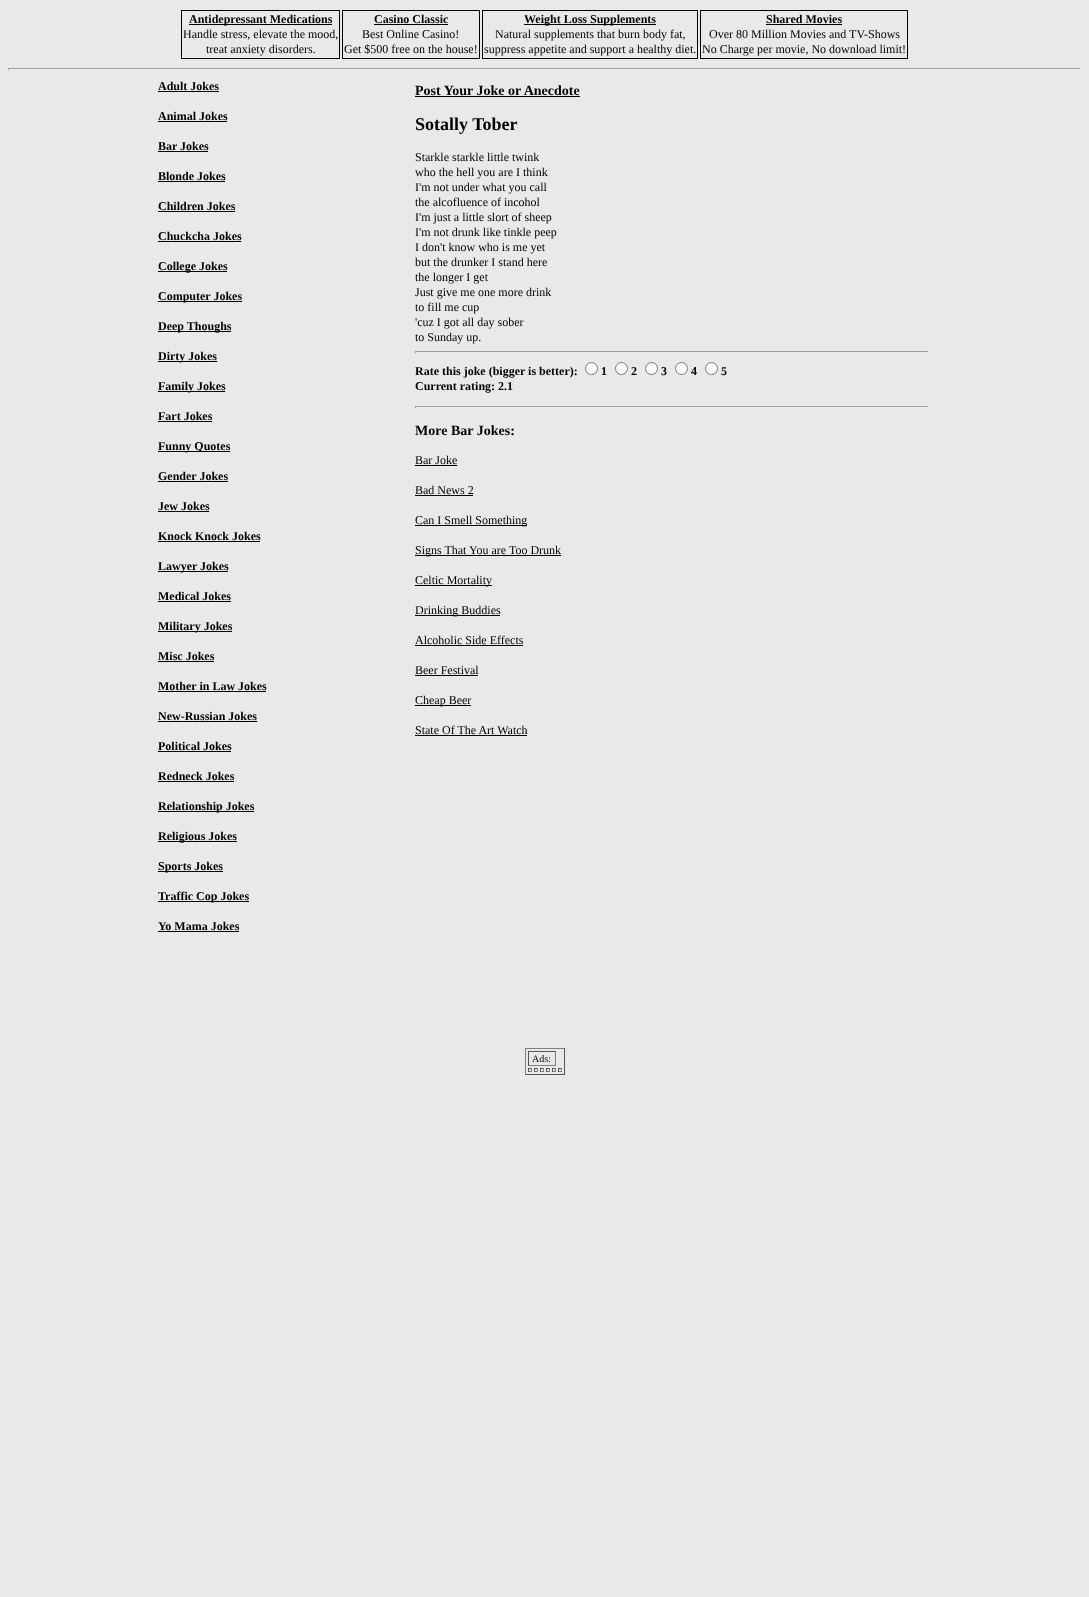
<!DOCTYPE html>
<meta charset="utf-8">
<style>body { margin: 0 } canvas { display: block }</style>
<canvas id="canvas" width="1089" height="1597"></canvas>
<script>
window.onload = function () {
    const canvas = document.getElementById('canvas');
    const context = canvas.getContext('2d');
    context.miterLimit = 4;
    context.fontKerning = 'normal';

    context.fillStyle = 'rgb(232, 233, 235)';
    context.fillRect(0, 0, 1089, 1597);
    context.strokeStyle = 'rgb(0, 0, 0)';
    context.strokeRect(181.5, 10.5, 158, 48);
    context.fillStyle = 'rgb(0, 0, 0)';
    context.fillRect(189, 24, 143, 1);
    context.strokeRect(342.5, 10.5, 137, 48);
    context.fillRect(374, 24, 74, 1);
    context.strokeRect(482.5, 10.5, 215, 48);
    context.fillRect(524, 24, 132, 1);
    context.strokeRect(700.5, 10.5, 207, 48);
    context.fillRect(766, 24, 76, 1);
    context.fillStyle = 'rgb(159, 159, 159)';
    context.fillRect(8, 68, 1073, 1);
    context.fillStyle = 'rgb(238, 238, 238)';
    context.fillRect(1080, 68, 1, 2);
    context.fillRect(8, 69, 1073, 1);
    context.fillStyle = 'rgb(159, 159, 159)';
    context.fillRect(8, 68, 1, 2);
    context.fillStyle = 'rgb(0, 0, 0)';
    context.fillRect(158, 91, 61, 1);
    context.fillRect(158, 121, 69, 1);
    context.fillRect(158, 151, 50, 1);
    context.fillRect(158, 181, 67, 1);
    context.fillRect(158, 211, 77, 1);
    context.fillRect(158, 241, 83, 1);
    context.fillRect(158, 271, 69, 1);
    context.fillRect(158, 301, 84, 1);
    context.fillRect(158, 331, 73, 1);
    context.fillRect(158, 361, 59, 1);
    context.fillRect(158, 391, 67, 1);
    context.fillRect(158, 421, 54, 1);
    context.fillRect(158, 451, 72, 1);
    context.fillRect(158, 481, 70, 1);
    context.fillRect(158, 511, 51, 1);
    context.fillRect(158, 541, 102, 1);
    context.fillRect(158, 571, 70, 1);
    context.fillRect(158, 601, 73, 1);
    context.fillRect(158, 631, 74, 1);
    context.fillRect(158, 661, 56, 1);
    context.fillRect(158, 691, 108, 1);
    context.fillRect(158, 721, 99, 1);
    context.fillRect(158, 751, 73, 1);
    context.fillRect(158, 781, 76, 1);
    context.fillRect(158, 811, 96, 1);
    context.fillRect(158, 841, 79, 1);
    context.fillRect(158, 871, 65, 1);
    context.fillRect(158, 901, 91, 1);
    context.fillRect(158, 931, 81, 1);
    context.fillRect(415, 96, 165, 1);
    context.fillStyle = 'rgb(159, 159, 159)';
    context.fillRect(415, 351, 514, 1);
    context.fillStyle = 'rgb(238, 238, 238)';
    context.fillRect(928, 351, 1, 2);
    context.fillRect(415, 352, 514, 1);
    context.fillStyle = 'rgb(159, 159, 159)';
    context.fillRect(415, 351, 1, 2);
    context.fillStyle = 'rgb(255, 255, 255)';
    context.beginPath();
    context.arc(591.5, 368.5, 6, 0, 2 * Math.PI);
    context.fill();
    context.strokeStyle = 'rgb(118, 118, 118)';
    context.stroke();
    context.beginPath();
    context.arc(621.5, 368.5, 6, 0, 2 * Math.PI);
    context.fill();
    context.stroke();
    context.beginPath();
    context.arc(651.5, 368.5, 6, 0, 2 * Math.PI);
    context.fill();
    context.stroke();
    context.beginPath();
    context.arc(681.5, 368.5, 6, 0, 2 * Math.PI);
    context.fill();
    context.stroke();
    context.beginPath();
    context.arc(711.5, 368.5, 6, 0, 2 * Math.PI);
    context.fill();
    context.stroke();
    context.fillStyle = 'rgb(159, 159, 159)';
    context.fillRect(415, 406, 514, 1);
    context.fillStyle = 'rgb(238, 238, 238)';
    context.fillRect(928, 406, 1, 2);
    context.fillRect(415, 407, 514, 1);
    context.fillStyle = 'rgb(159, 159, 159)';
    context.fillRect(415, 406, 1, 2);
    context.fillStyle = 'rgb(0, 0, 0)';
    context.fillRect(415, 465, 42, 1);
    context.fillRect(415, 495, 58, 1);
    context.fillRect(415, 525, 112, 1);
    context.fillRect(415, 555, 146, 1);
    context.fillRect(415, 585, 77, 1);
    context.fillRect(415, 615, 85, 1);
    context.fillRect(415, 645, 108, 1);
    context.fillRect(415, 675, 63, 1);
    context.fillRect(415, 705, 56, 1);
    context.fillRect(415, 735, 112, 1);
    context.fillStyle = 'rgb(128, 128, 128)';
    context.fillRect(525, 1048, 40, 1);
    context.fillStyle = 'rgb(85, 85, 85)';
    context.fillRect(564, 1048, 1, 27);
    context.fillRect(525, 1074, 40, 1);
    context.fillStyle = 'rgb(128, 128, 128)';
    context.fillRect(525, 1048, 1, 27);
    context.fillStyle = 'rgb(85, 85, 85)';
    context.fillRect(528, 1051, 28, 1);
    context.fillStyle = 'rgb(128, 128, 128)';
    context.fillRect(555, 1051, 1, 15);
    context.fillRect(528, 1065, 28, 1);
    context.fillStyle = 'rgb(85, 85, 85)';
    context.fillRect(528, 1051, 1, 15);
    context.fillRect(528, 1068, 4, 1);
    context.fillStyle = 'rgb(128, 128, 128)';
    context.fillRect(531, 1068, 1, 4);
    context.fillRect(528, 1071, 4, 1);
    context.fillStyle = 'rgb(85, 85, 85)';
    context.fillRect(528, 1068, 1, 4);
    context.fillRect(534, 1068, 4, 1);
    context.fillStyle = 'rgb(128, 128, 128)';
    context.fillRect(537, 1068, 1, 4);
    context.fillRect(534, 1071, 4, 1);
    context.fillStyle = 'rgb(85, 85, 85)';
    context.fillRect(534, 1068, 1, 4);
    context.fillRect(540, 1068, 4, 1);
    context.fillStyle = 'rgb(128, 128, 128)';
    context.fillRect(543, 1068, 1, 4);
    context.fillRect(540, 1071, 4, 1);
    context.fillStyle = 'rgb(85, 85, 85)';
    context.fillRect(540, 1068, 1, 4);
    context.fillRect(546, 1068, 4, 1);
    context.fillStyle = 'rgb(128, 128, 128)';
    context.fillRect(549, 1068, 1, 4);
    context.fillRect(546, 1071, 4, 1);
    context.fillStyle = 'rgb(85, 85, 85)';
    context.fillRect(546, 1068, 1, 4);
    context.fillRect(552, 1068, 4, 1);
    context.fillStyle = 'rgb(128, 128, 128)';
    context.fillRect(555, 1068, 1, 4);
    context.fillRect(552, 1071, 4, 1);
    context.fillStyle = 'rgb(85, 85, 85)';
    context.fillRect(552, 1068, 1, 4);
    context.fillRect(558, 1068, 4, 1);
    context.fillStyle = 'rgb(128, 128, 128)';
    context.fillRect(561, 1068, 1, 4);
    context.fillRect(558, 1071, 4, 1);
    context.fillStyle = 'rgb(85, 85, 85)';
    context.fillRect(558, 1068, 1, 4);
    context.font = 'bold 12px Liberation Serif';
    context.fillStyle = 'rgb(0, 0, 0)';
    context.fillText('Antidepressant Medications', 189, 23);
    context.font = '12px Liberation Serif';
    context.fillText('Handle stress, elevate the mood,', 183, 38);
    context.fillText('treat anxiety disorders.', 206, 53);
    context.font = 'bold 12px Liberation Serif';
    context.fillText('Casino Classic', 374, 23);
    context.font = '12px Liberation Serif';
    context.fillText('Best Online Casino!', 362, 38);
    context.fillText('Get $500 free on the house!', 344, 53);
    context.font = 'bold 12px Liberation Serif';
    context.fillText('Weight Loss Supplements', 524, 23);
    context.font = '12px Liberation Serif';
    context.fillText('Natural supplements that burn body fat,', 495, 38);
    context.fillText('suppress appetite and support a healthy diet.', 484, 53);
    context.font = 'bold 12px Liberation Serif';
    context.fillText('Shared Movies', 766, 23);
    context.font = '12px Liberation Serif';
    context.fillText('Over 80 Million Movies and TV-Shows', 709, 38);
    context.fillText('No Charge per movie, No download limit!', 702, 53);
    context.font = 'bold 12px Liberation Serif';
    context.fillText('Adult Jokes', 158, 90);
    context.fillText('Animal Jokes', 158, 120);
    context.fillText('Bar Jokes', 158, 150);
    context.fillText('Blonde Jokes', 158, 180);
    context.fillText('Children Jokes', 158, 210);
    context.fillText('Chuckcha Jokes', 158, 240);
    context.fillText('College Jokes', 158, 270);
    context.fillText('Computer Jokes', 158, 300);
    context.fillText('Deep Thoughs', 158, 330);
    context.fillText('Dirty Jokes', 158, 360);
    context.fillText('Family Jokes', 158, 390);
    context.fillText('Fart Jokes', 158, 420);
    context.fillText('Funny Quotes', 158, 450);
    context.fillText('Gender Jokes', 158, 480);
    context.fillText('Jew Jokes', 158, 510);
    context.fillText('Knock Knock Jokes', 158, 540);
    context.fillText('Lawyer Jokes', 158, 570);
    context.fillText('Medical Jokes', 158, 600);
    context.fillText('Military Jokes', 158, 630);
    context.fillText('Misc Jokes', 158, 660);
    context.fillText('Mother in Law Jokes', 158, 690);
    context.fillText('New-Russian Jokes', 158, 720);
    context.fillText('Political Jokes', 158, 750);
    context.fillText('Redneck Jokes', 158, 780);
    context.fillText('Relationship Jokes', 158, 810);
    context.fillText('Religious Jokes', 158, 840);
    context.fillText('Sports Jokes', 158, 870);
    context.fillText('Traffic Cop Jokes', 158, 900);
    context.fillText('Yo Mama Jokes', 158, 930);
    context.font = 'bold 14px Liberation Serif';
    context.fillText('Post Your Joke or Anecdote', 415, 95);
    context.font = 'bold 18px Liberation Serif';
    context.fillText('Sotally Tober', 415, 130);
    context.font = '12px Liberation Serif';
    context.fillText('Starkle starkle little twink', 415, 161);
    context.fillText('who the hell you are I think', 415, 176);
    context.fillText('I\'m not under what you call', 415, 191);
    context.fillText('the alcofluence of incohol', 415, 206);
    context.fillText('I\'m just a little slort of sheep', 415, 221);
    context.fillText('I\'m not drunk like tinkle peep', 415, 236);
    context.fillText('I don\'t know who is me yet', 415, 251);
    context.fillText('but the drunker I stand here', 415, 266);
    context.fillText('the longer I get', 415, 281);
    context.fillText('Just give me one more drink', 415, 296);
    context.fillText('to fill me cup', 415, 311);
    context.fillText('\'cuz I got all day sober', 415, 326);
    context.fillText('to Sunday up.', 415, 341);
    context.font = 'bold 12px Liberation Serif';
    context.fillText('Rate this joke (bigger is better):', 415, 375);
    context.fillText('1', 601, 375);
    context.fillText('2', 631, 375);
    context.fillText('3', 661, 375);
    context.fillText('4', 691, 375);
    context.fillText('5', 721, 375);
    context.fillText('Current rating: 2.1', 415, 390);
    context.font = 'bold 14px Liberation Serif';
    context.fillText('More Bar Jokes:', 415, 435);
    context.font = '12px Liberation Serif';
    context.fillText('Bar Joke', 415, 464);
    context.fillText('Bad News 2', 415, 494);
    context.fillText('Can I Smell Something', 415, 524);
    context.fillText('Signs That You are Too Drunk', 415, 554);
    context.fillText('Celtic Mortality', 415, 584);
    context.fillText('Drinking Buddies', 415, 614);
    context.fillText('Alcoholic Side Effects', 415, 644);
    context.fillText('Beer Festival', 415, 674);
    context.fillText('Cheap Beer', 415, 704);
    context.fillText('State Of The Art Watch', 415, 734);
    context.font = '10px Liberation Serif';
    context.fillText('Ads:', 532, 1062);
};
</script>
